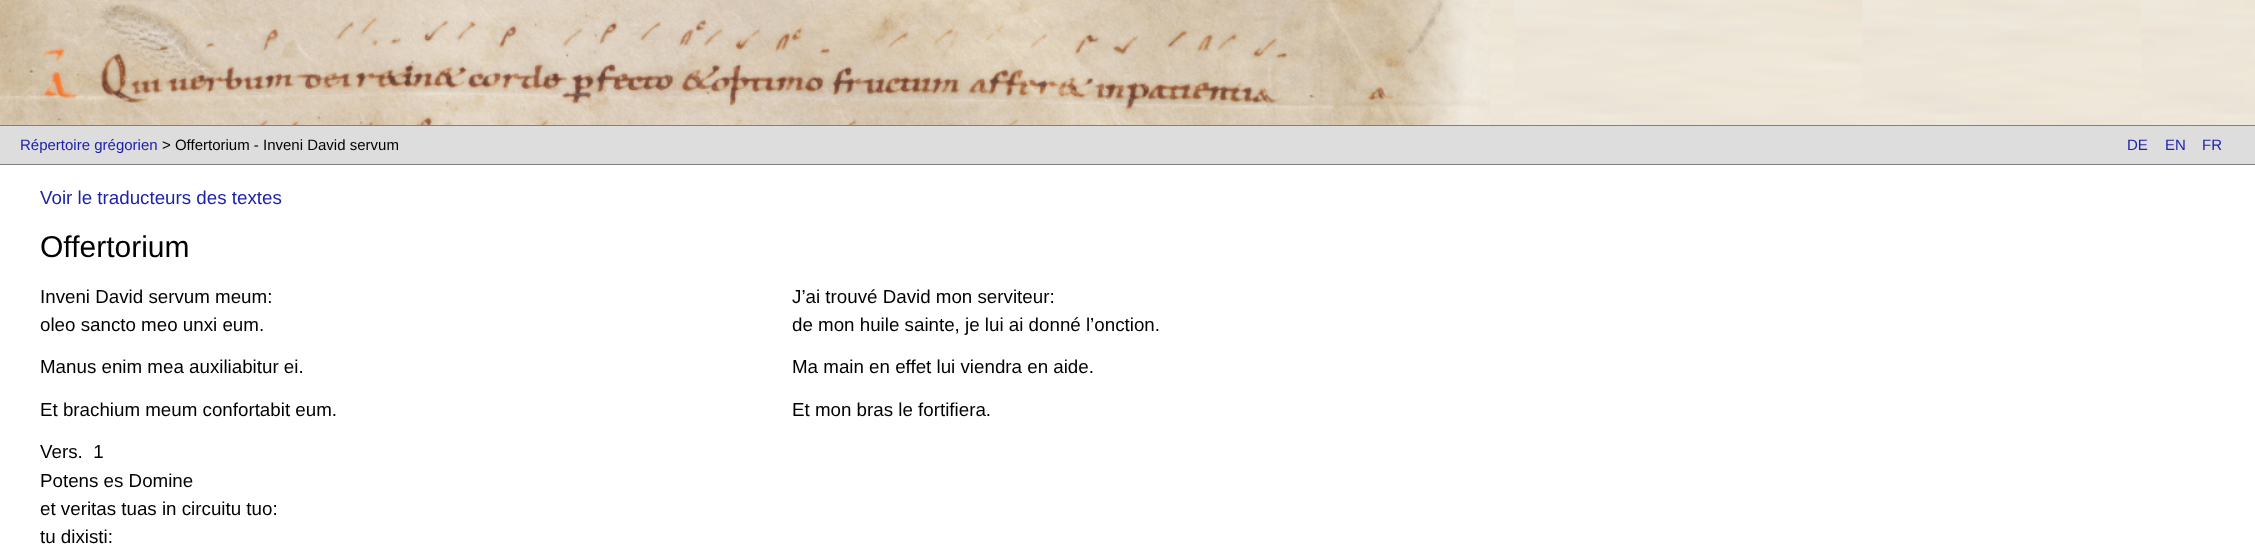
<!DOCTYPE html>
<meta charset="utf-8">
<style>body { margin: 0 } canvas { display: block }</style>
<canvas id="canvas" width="2255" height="554"></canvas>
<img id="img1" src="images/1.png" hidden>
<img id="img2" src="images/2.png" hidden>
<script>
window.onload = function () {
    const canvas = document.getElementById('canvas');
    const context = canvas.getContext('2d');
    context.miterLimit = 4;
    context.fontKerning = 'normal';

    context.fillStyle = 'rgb(255, 255, 255)';
    context.fillRect(0, 0, 2255, 554);
    context.drawImage(document.getElementById('img1'), 1490, 0, 765, 125);
    context.drawImage(document.getElementById('img2'), 0, 0, 1490, 125);
    context.fillStyle = 'rgb(221, 221, 221)';
    context.fillRect(0, 126, 2255, 38);
    context.fillStyle = 'rgb(128, 128, 128)';
    context.fillRect(0, 125, 2255, 1);
    context.fillRect(0, 164, 2255, 1);
    context.font = '15px Liberation Sans';
    context.fillStyle = 'rgb(30, 34, 170)';
    context.fillText('Répertoire grégorien', 20, 150);
    context.fillStyle = 'rgb(0, 0, 0)';
    context.fillText('> Offertorium - Inveni David servum', 162, 150);
    context.fillStyle = 'rgb(30, 34, 170)';
    context.fillText('DE', 2127, 150);
    context.fillText('EN', 2165, 150);
    context.fillText('FR', 2202, 150);
    context.font = '18.75px Liberation Sans';
    context.fillText('Voir le traducteurs des textes', 40, 204);
    context.font = '30px Liberation Sans';
    context.fillStyle = 'rgb(0, 0, 0)';
    context.fillText('Offertorium', 40, 257);
    context.font = '18.75px Liberation Sans';
    context.fillText('Inveni David servum meum:', 40, 303);
    context.fillText('oleo sancto meo unxi eum.', 40, 331);
    context.fillText('J’ai trouvé David mon serviteur:', 792, 303);
    context.fillText('de mon huile sainte, je lui ai donné l’onction.', 792, 331);
    context.fillText('Manus enim mea auxiliabitur ei.', 40, 373);
    context.fillText('Ma main en effet lui viendra en aide.', 792, 373);
    context.fillText('Et brachium meum confortabit eum.', 40, 416);
    context.fillText('Et mon bras le fortifiera.', 792, 416);
    context.fillText('Vers.  1', 40, 458);
    context.fillText('Potens es Domine', 40, 487);
    context.fillText('et veritas tuas in circuitu tuo:', 40, 515);
    context.fillText('tu dixisti:', 40, 543);
};
</script>
